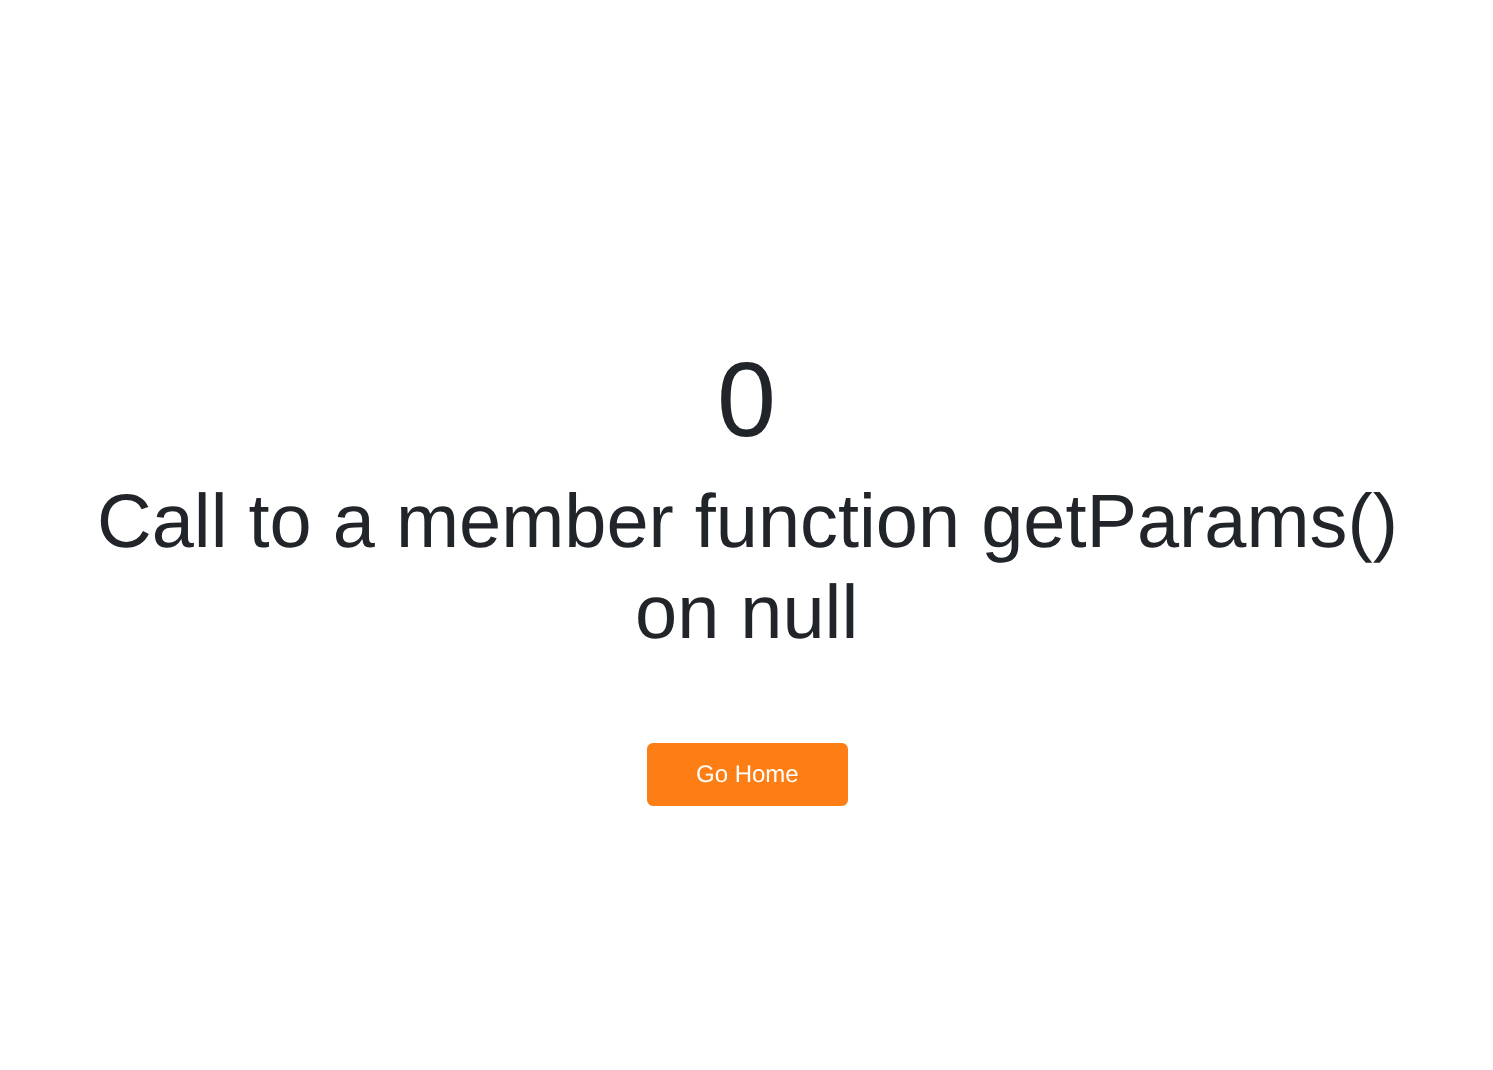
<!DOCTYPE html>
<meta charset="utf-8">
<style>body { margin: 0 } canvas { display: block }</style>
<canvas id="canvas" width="1493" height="1070"></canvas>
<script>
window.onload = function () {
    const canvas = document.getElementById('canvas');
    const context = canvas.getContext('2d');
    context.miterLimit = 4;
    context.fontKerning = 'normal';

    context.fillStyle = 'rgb(255, 255, 255)';
    context.fillRect(0, 0, 1493, 1070);
    context.fillStyle = 'rgb(253, 126, 20)';
    context.beginPath();
    context.roundRect(648, 744, 199, 61, 5);
    context.fill();
    context.strokeStyle = 'rgb(253, 126, 20)';
    context.lineWidth = 2;
    context.stroke();
    context.font = '106px Liberation Sans';
    context.fillStyle = 'rgb(33, 37, 41)';
    context.fillText('0', 717, 436);
    context.font = '75.75px Liberation Sans';
    context.fillText('Call to a member function getParams()', 97, 547);
    context.fillText('on null', 635, 638);
    context.font = '24px Liberation Sans';
    context.fillStyle = 'rgb(255, 255, 255)';
    context.fillText('Go Home', 696, 782);
};
</script>
